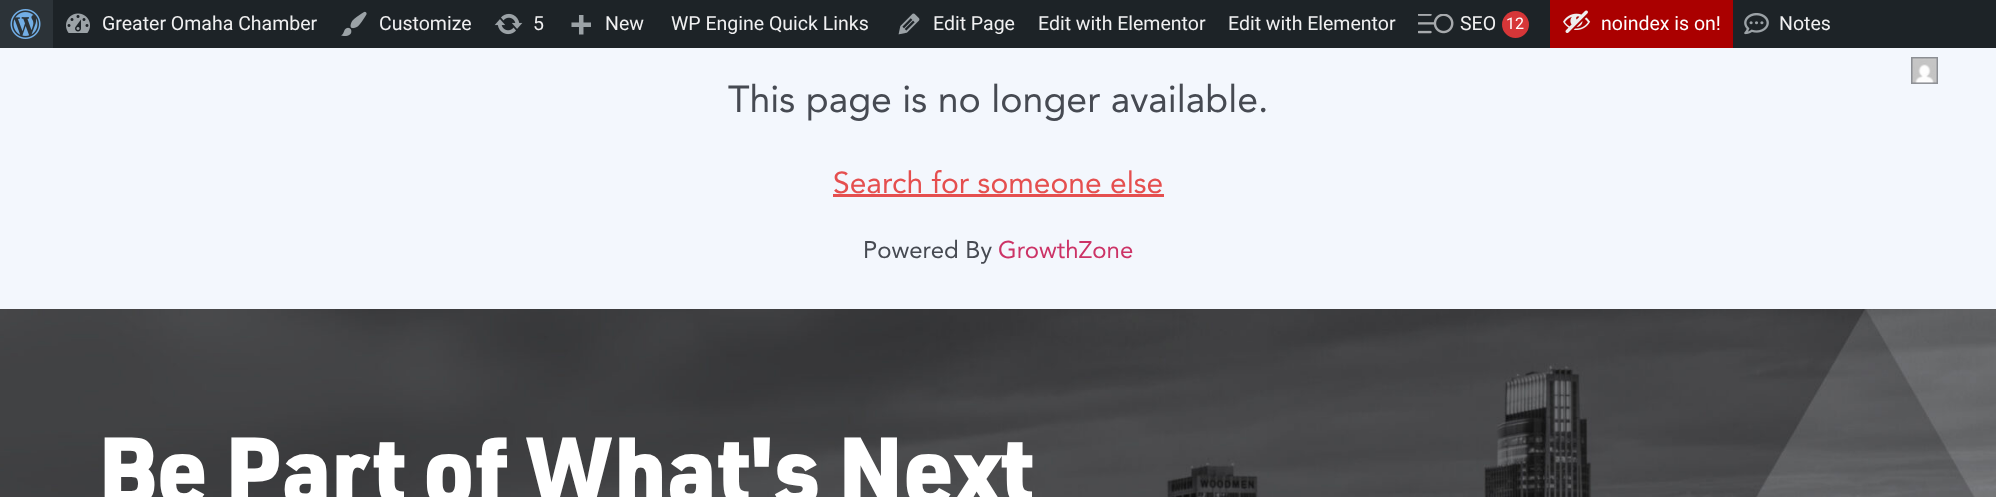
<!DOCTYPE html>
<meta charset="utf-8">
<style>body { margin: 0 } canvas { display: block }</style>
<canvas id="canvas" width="1996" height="497"></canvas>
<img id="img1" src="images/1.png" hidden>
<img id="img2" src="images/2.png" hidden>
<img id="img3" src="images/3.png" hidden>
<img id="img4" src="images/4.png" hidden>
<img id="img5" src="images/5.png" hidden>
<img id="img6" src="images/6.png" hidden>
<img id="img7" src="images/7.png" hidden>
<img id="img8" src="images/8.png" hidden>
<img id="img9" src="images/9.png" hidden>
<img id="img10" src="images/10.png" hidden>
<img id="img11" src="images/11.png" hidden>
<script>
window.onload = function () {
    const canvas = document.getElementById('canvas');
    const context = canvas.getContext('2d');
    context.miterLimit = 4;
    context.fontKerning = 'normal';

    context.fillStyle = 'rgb(243, 247, 253)';
    context.fillRect(0, 0, 1996, 497);
    context.fillStyle = 'rgb(29, 35, 39)';
    context.fillRect(53, 0, 1943, 48);
    context.fillStyle = 'rgb(44, 51, 56)';
    context.fillRect(0, 0, 53, 48);
    context.drawImage(document.getElementById('img1'), 10, 9, 31, 30);
    context.drawImage(document.getElementById('img2'), 66, 13, 24, 20);
    context.drawImage(document.getElementById('img3'), 341, 11, 26, 25);
    context.drawImage(document.getElementById('img4'), 494, 13, 29, 22);
    context.drawImage(document.getElementById('img5'), 571, 15, 20, 20);
    context.drawImage(document.getElementById('img6'), 898, 13, 22, 22);
    context.drawImage(document.getElementById('img7'), 1418, 14, 36, 20);
    context.fillStyle = 'rgb(214, 54, 56)';
    context.beginPath();
    context.arc(1515.5, 24.5, 13.5, 0, 2 * Math.PI);
    context.fill();
    context.fillStyle = 'rgb(170, 0, 0)';
    context.fillRect(1550, 0, 183, 48);
    context.drawImage(document.getElementById('img8'), 1563, 10, 28, 23);
    context.drawImage(document.getElementById('img9'), 1744, 13, 25, 22);
    context.strokeStyle = 'rgb(140, 143, 148)';
    context.lineWidth = 2;
    context.strokeRect(1912, 58, 25, 25);
    context.drawImage(document.getElementById('img10'), 1912, 58, 25, 26);
    context.fillStyle = 'rgb(229, 79, 79)';
    context.fillRect(833, 194, 331, 3);
    context.drawImage(document.getElementById('img11'), 0, 309, 1996, 188);
    context.font = '19.5px Roboto';
    context.fillStyle = 'rgb(240, 240, 241)';
    context.fillText('Greater Omaha Chamber', 102, 30);
    context.fillText('Customize', 379, 30);
    context.fillText('5', 533, 30);
    context.fillText('New', 605, 30);
    context.fillText('WP Engine Quick Links', 671, 30);
    context.fillText('Edit Page', 933, 30);
    context.fillText('Edit with Elementor', 1038, 30);
    context.fillText('Edit with Elementor', 1228, 30);
    context.fillText('SEO', 1460, 30);
    context.font = '16px Roboto';
    context.fillStyle = 'rgb(255, 255, 255)';
    context.fillText('12', 1506, 29);
    context.font = '19.5px Roboto';
    context.fillText('noindex is on!', 1601, 30);
    context.fillStyle = 'rgb(240, 240, 241)';
    context.fillText('Notes', 1779, 30);
    context.font = '37.5px Avenir';
    context.fillStyle = 'rgb(70, 74, 82)';
    context.fillText('This page is no longer available.', 728, 112);
    context.font = '30px Avenir';
    context.fillStyle = 'rgb(229, 79, 79)';
    context.fillText('Search for someone else', 833, 193);
    context.font = '24px Avenir';
    context.fillStyle = 'rgb(70, 74, 82)';
    context.fillText('Powered By', 863, 258);
    context.fillStyle = 'rgb(204, 51, 102)';
    context.fillText('GrowthZone', 998, 258);
    context.letterSpacing = '-0.75px';
    context.font = '900 93.1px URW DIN';
    context.fillStyle = 'rgb(255, 255, 255)';
    context.fillText('Be Part of What\'s Next', 98, 504);
};
</script>
